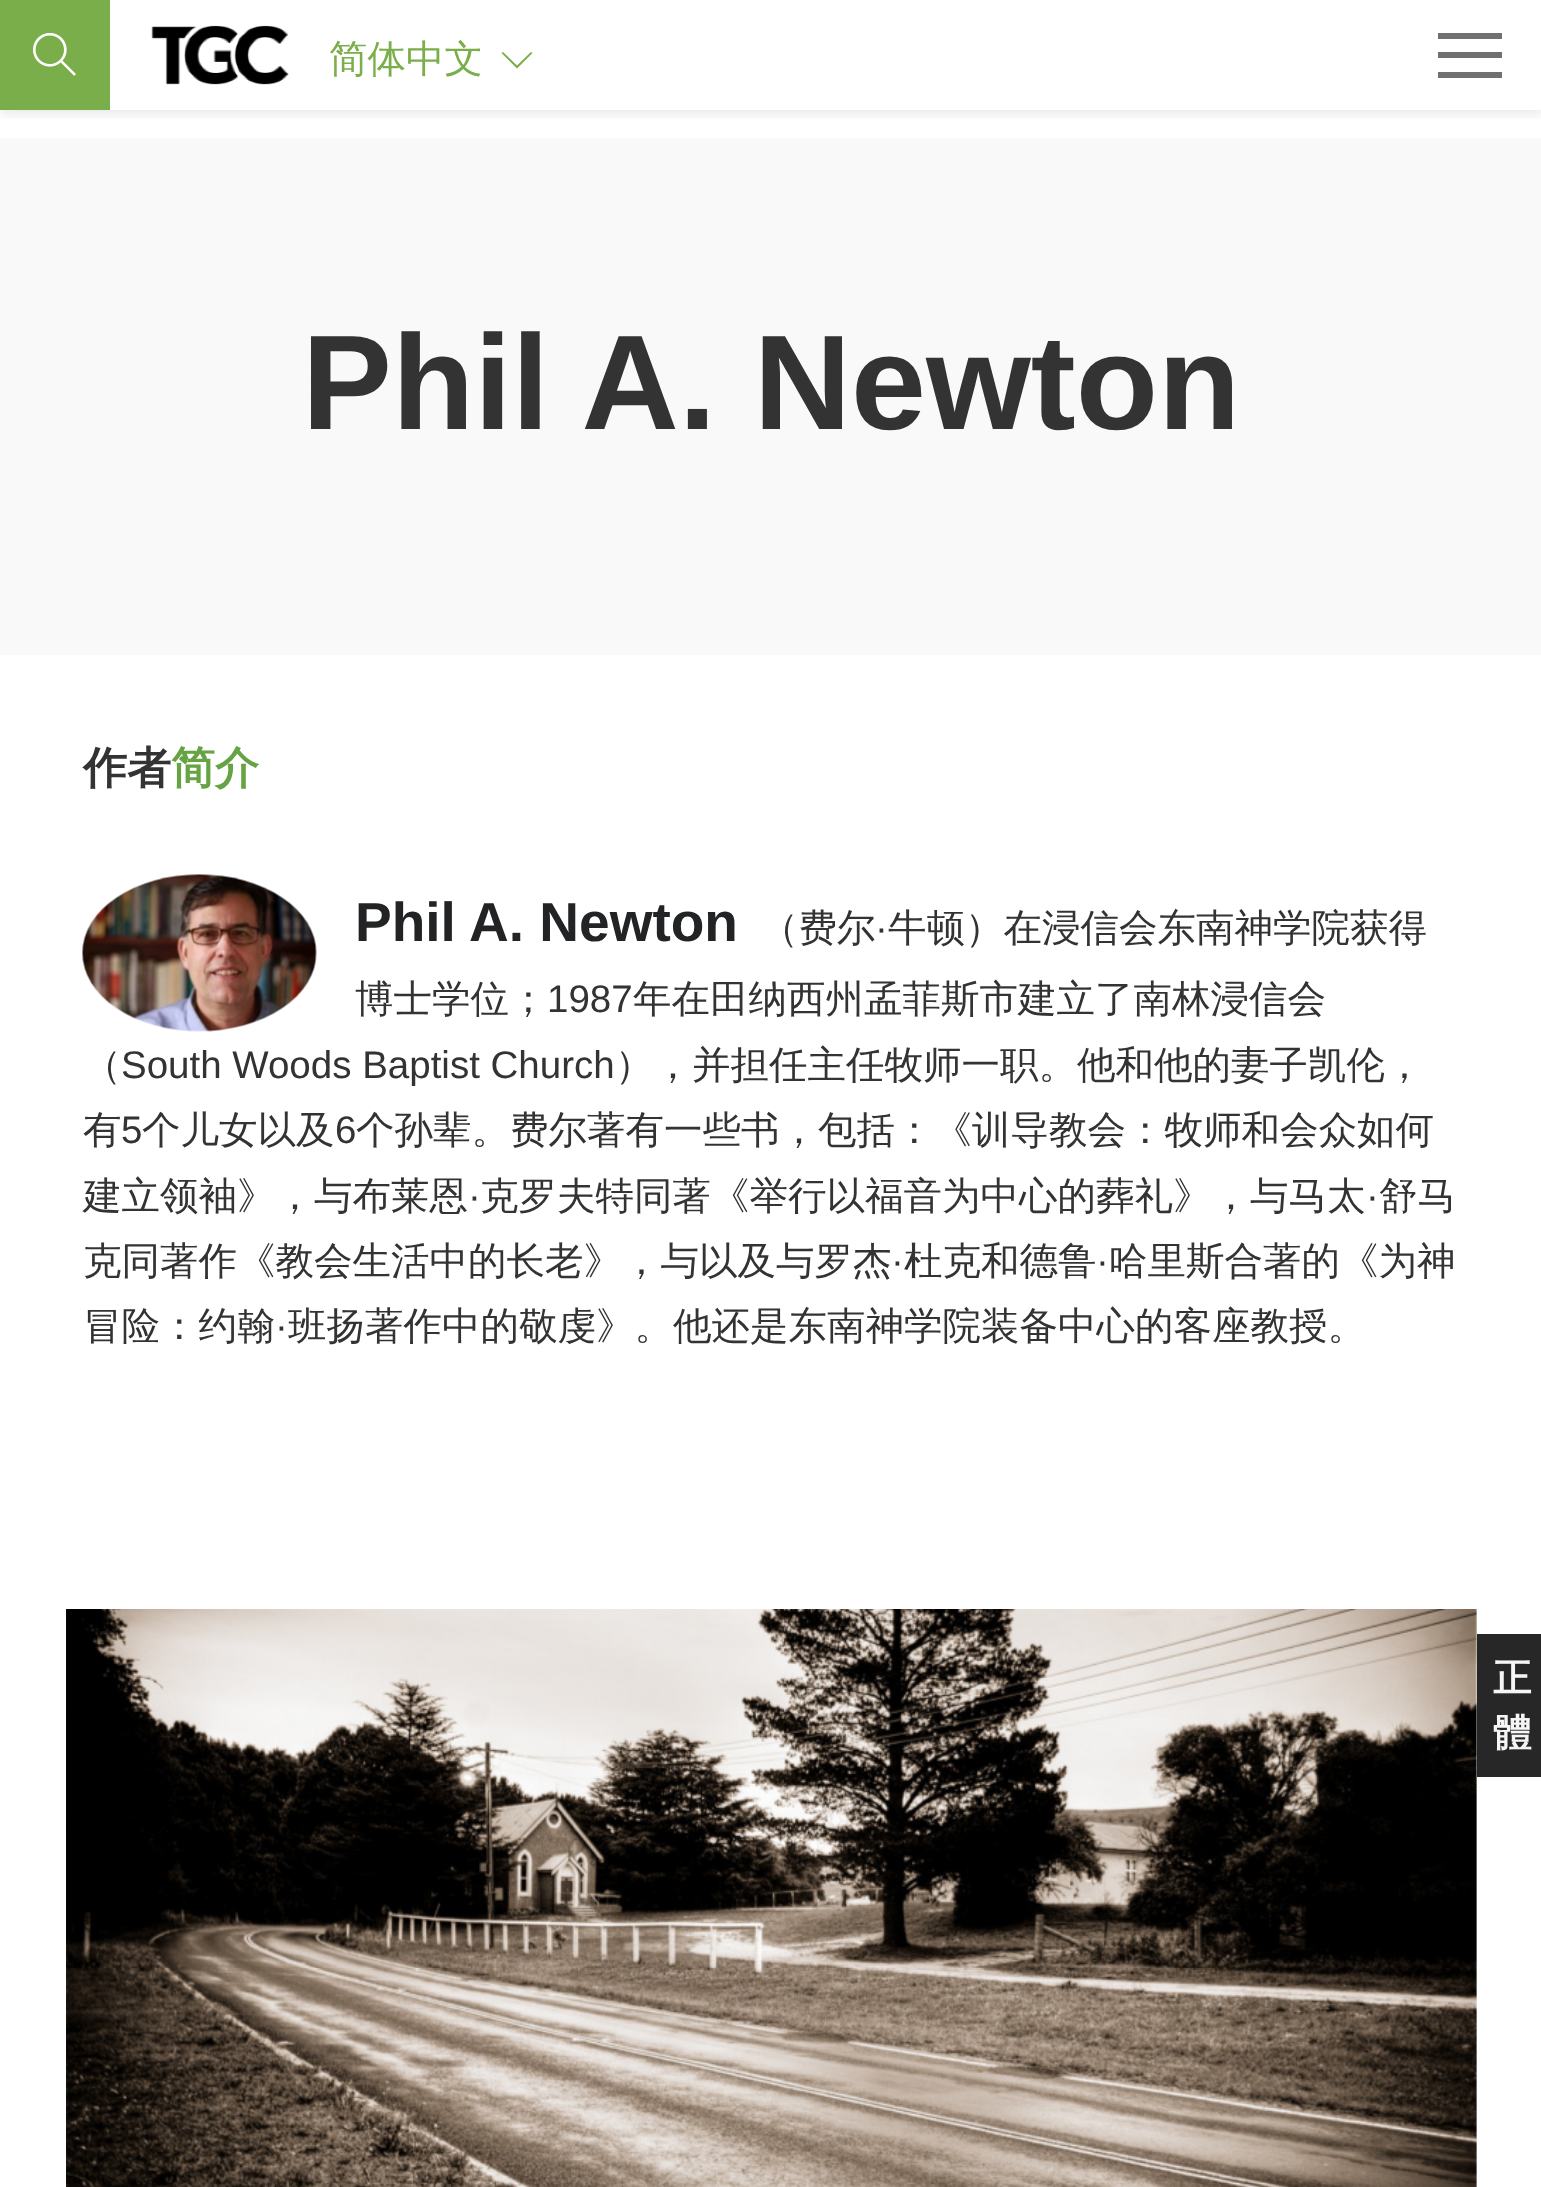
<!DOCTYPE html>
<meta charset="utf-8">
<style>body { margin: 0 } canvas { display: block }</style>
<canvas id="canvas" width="1541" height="2187"></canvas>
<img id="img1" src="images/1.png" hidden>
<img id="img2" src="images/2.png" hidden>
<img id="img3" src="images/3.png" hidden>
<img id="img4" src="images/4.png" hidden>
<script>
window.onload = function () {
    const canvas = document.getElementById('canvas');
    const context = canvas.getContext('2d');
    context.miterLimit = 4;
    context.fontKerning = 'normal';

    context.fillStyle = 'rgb(255, 255, 255)';
    context.fillRect(0, 0, 1541, 2187);
    context.save();
    context.beginPath();
    context.rect(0, 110, 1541, 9);
    context.clip();
    context.fillStyle = 'rgba(0, 0, 0, 0.1)';
    context.filter = 'blur(7px)';
    context.beginPath();
    context.rect(0, 3, 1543, 110);
    context.fill();
    context.filter = 'none';
    context.restore();
    context.fillStyle = 'rgb(121, 174, 74)';
    context.fillRect(0, 0, 110, 110);
    context.drawImage(document.getElementById('img1'), 33, 32, 43, 44);
    context.drawImage(document.getElementById('img2'), 151, 25, 138, 60);
    context.beginPath();
    context.moveTo(532.5, 53);
    context.lineTo(517, 68.5);
    context.lineTo(501.5, 53);
    context.lineTo(503, 52);
    context.lineTo(517, 65.5);
    context.lineTo(531, 52);
    context.closePath();
    context.fill();
    context.fillStyle = 'rgb(112, 112, 112)';
    context.fillRect(1438, 52, 64, 6);
    context.fillRect(1438, 33, 64, 6);
    context.fillRect(1438, 72, 64, 6);
    context.fillStyle = 'rgb(249, 249, 249)';
    context.fillRect(0, 138, 1541, 517);
    context.drawImage(document.getElementById('img3'), 82, 874, 235, 158);
    context.fillStyle = 'rgb(241, 241, 241)';
    context.fillRect(1476, 1609, 1, 578);
    context.drawImage(document.getElementById('img4'), 66, 1609, 1411, 578);
    context.fillStyle = 'rgb(39, 39, 39)';
    context.fillRect(1477, 1634, 64, 143);
    context.font = '500 38.5px WenQuanYi Zen Hei';
    context.fillStyle = 'rgb(121, 174, 74)';
    context.fillText('简体中文', 329, 72);
    context.font = 'bold 134.75px Liberation Sans';
    context.fillStyle = 'rgb(51, 51, 51)';
    context.fillText('Phil A. Newton', 302, 429);
    context.font = 'bold 44px WenQuanYi Zen Hei';
    context.fillText('作者', 83, 783);
    context.fillStyle = 'rgb(102, 163, 67)';
    context.fillText('简介', 171, 783);
    context.font = 'bold 55px Liberation Sans';
    context.fillStyle = 'rgb(34, 35, 37)';
    context.fillText('Phil A. Newton', 355, 941);
    context.font = '500 38.5px WenQuanYi Zen Hei';
    context.fillStyle = 'rgb(51, 51, 51)';
    context.fillText('（费尔', 760, 941);
    context.font = '38.5px Liberation Sans';
    context.fillText('·', 875, 941);
    context.font = '500 38.5px WenQuanYi Zen Hei';
    context.fillText('牛顿）在浸信会东南神学院获得', 888, 941);
    context.fillText('博士学位；', 355, 1012);
    context.font = '38.5px Liberation Sans';
    context.fillText('1987', 547, 1012);
    context.font = '500 38.5px WenQuanYi Zen Hei';
    context.fillText('年在田纳西州孟菲斯市建立了南林浸信会', 633, 1012);
    context.fillText('（', 83, 1078);
    context.font = '38.5px Liberation Sans';
    context.fillText('South Woods Baptist Church', 121, 1078);
    context.font = '500 38.5px WenQuanYi Zen Hei';
    context.fillText('），并担任主任牧师一职。他和他的妻子凯伦，', 615, 1078);
    context.fillText('有', 83, 1143);
    context.font = '38.5px Liberation Sans';
    context.fillText('5', 121, 1143);
    context.font = '500 38.5px WenQuanYi Zen Hei';
    context.fillText('个儿女以及', 142, 1143);
    context.font = '38.5px Liberation Sans';
    context.fillText('6', 335, 1143);
    context.font = '500 38.5px WenQuanYi Zen Hei';
    context.fillText('个孙辈。费尔著有一些书，包括：《训导教会：牧师和会众如何', 356, 1143);
    context.fillText('建立领袖》，与布莱恩', 83, 1209);
    context.font = '38.5px Liberation Sans';
    context.fillText('·', 468, 1209);
    context.font = '500 38.5px WenQuanYi Zen Hei';
    context.fillText('克罗夫特同著《举行以福音为中心的葬礼》，与马太', 480, 1209);
    context.font = '38.5px Liberation Sans';
    context.fillText('·', 1366, 1209);
    context.font = '500 38.5px WenQuanYi Zen Hei';
    context.fillText('舒马', 1379, 1209);
    context.fillText('克同著作《教会生活中的长老》，与以及与罗杰', 83, 1274);
    context.font = '38.5px Liberation Sans';
    context.fillText('·', 891, 1274);
    context.font = '500 38.5px WenQuanYi Zen Hei';
    context.fillText('杜克和德鲁', 904, 1274);
    context.font = '38.5px Liberation Sans';
    context.fillText('·', 1096, 1274);
    context.font = '500 38.5px WenQuanYi Zen Hei';
    context.fillText('哈里斯合著的《为神', 1109, 1274);
    context.fillText('冒险：约翰', 83, 1339);
    context.font = '38.5px Liberation Sans';
    context.fillText('·', 275, 1339);
    context.font = '500 38.5px WenQuanYi Zen Hei';
    context.fillText('班扬著作中的敬虔》。他还是东南神学院装备中心的客座教授。', 288, 1339);
    context.font = 'bold 38.5px WenQuanYi Zen Hei';
    context.fillStyle = 'rgb(245, 245, 245)';
    context.fillText('正', 1493, 1691);
    context.fillText('體', 1493, 1746);
};
</script>
